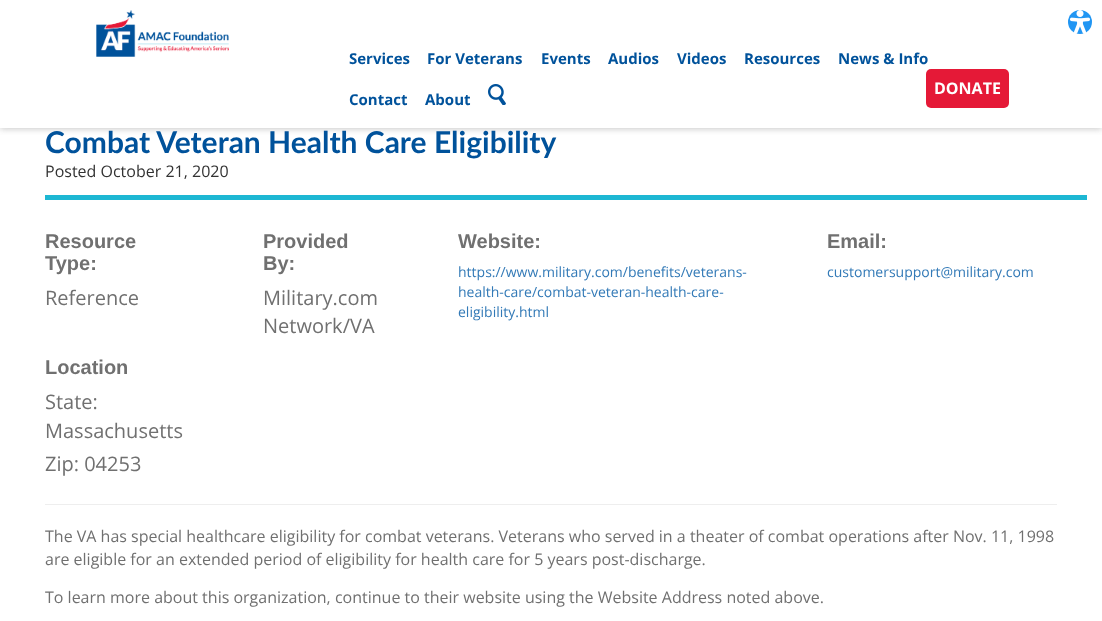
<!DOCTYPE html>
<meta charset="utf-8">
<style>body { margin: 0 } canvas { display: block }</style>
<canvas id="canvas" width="1102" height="621"></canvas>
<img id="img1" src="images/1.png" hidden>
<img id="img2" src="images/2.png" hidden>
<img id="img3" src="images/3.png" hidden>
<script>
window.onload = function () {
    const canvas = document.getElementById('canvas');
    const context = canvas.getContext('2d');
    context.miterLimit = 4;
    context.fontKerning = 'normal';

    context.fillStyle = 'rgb(255, 255, 255)';
    context.fillRect(0, 0, 1102, 621);
    context.save();
    context.beginPath();
    context.rect(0, 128, 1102, 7);
    context.clip();
    context.fillStyle = 'rgb(201, 201, 201)';
    context.filter = 'blur(3px)';
    context.beginPath();
    context.rect(0, 1, 1102, 128);
    context.fill();
    context.filter = 'none';
    context.restore();
    context.fillStyle = 'rgb(33, 150, 243)';
    context.beginPath();
    context.arc(1080, 22, 12, 0, 2 * Math.PI);
    context.fill();
    context.drawImage(document.getElementById('img1'), 1070, 10, 20, 24);
    context.drawImage(document.getElementById('img2'), 96, 10, 133, 47);
    context.drawImage(document.getElementById('img3'), 488, 84, 18, 21);
    context.fillStyle = 'rgb(229, 25, 55)';
    context.beginPath();
    context.roundRect(926, 69, 83, 39, 5);
    context.fill();
    context.fillStyle = 'rgb(29, 183, 211)';
    context.fillRect(45, 195, 1042, 5);
    context.fillStyle = 'rgb(238, 238, 238)';
    context.fillRect(45, 504, 1012, 1);
    context.font = 'bold 15px Open Sans';
    context.fillStyle = 'rgb(0, 82, 155)';
    context.fillText('Services', 349, 64);
    context.fillText('For Veterans', 427, 64);
    context.fillText('Events', 541, 64);
    context.fillText('Audios', 608, 64);
    context.fillText('Videos', 677, 64);
    context.fillText('Resources', 744, 64);
    context.fillText('News & Info', 838, 64);
    context.fillText('Contact', 349, 105);
    context.fillText('About', 425, 105);
    context.font = 'bold 16px Open Sans';
    context.fillStyle = 'rgb(255, 255, 255)';
    context.fillText('DONATE', 934, 94);
    context.font = 'bold 30px Lato';
    context.fillStyle = 'rgb(0, 82, 155)';
    context.fillText('Combat Veteran Health Care Eligibility', 45, 153);
    context.font = '16px Open Sans';
    context.fillStyle = 'rgb(51, 51, 51)';
    context.fillText('Posted October 21, 2020', 45, 177);
    context.font = 'bold 20px Liberation Sans';
    context.fillStyle = 'rgb(112, 112, 112)';
    context.fillText('Resource', 45, 248);
    context.fillText('Type:', 45, 270);
    context.font = '20px Open Sans';
    context.fillText('Reference', 45, 305);
    context.font = 'bold 20px Liberation Sans';
    context.fillText('Provided', 263, 248);
    context.fillText('By:', 263, 270);
    context.font = '20px Open Sans';
    context.fillText('Military.com', 263, 305);
    context.fillText('Network/VA', 263, 333);
    context.font = 'bold 20px Liberation Sans';
    context.fillText('Website:', 458, 248);
    context.font = '14px Open Sans';
    context.fillStyle = 'rgb(51, 122, 183)';
    context.fillText('https://www.military.com/benefits/veterans-', 458, 277);
    context.fillText('health-care/combat-veteran-health-care-', 458, 297);
    context.fillText('eligibility.html', 458, 317);
    context.font = 'bold 20px Liberation Sans';
    context.fillStyle = 'rgb(112, 112, 112)';
    context.fillText('Email:', 827, 248);
    context.font = '14px Open Sans';
    context.fillStyle = 'rgb(51, 122, 183)';
    context.fillText('customersupport@military.com', 827, 277);
    context.font = 'bold 20px Liberation Sans';
    context.fillStyle = 'rgb(112, 112, 112)';
    context.fillText('Location', 45, 374);
    context.font = '20px Open Sans';
    context.fillText('State:', 45, 409);
    context.fillText('Massachusetts', 45, 438);
    context.fillText('Zip: 04253', 45, 471);
    context.font = '16px Open Sans';
    context.fillText('The VA has special healthcare eligibility for combat veterans. Veterans who served in a theater of combat operations after Nov. 11, 1998', 45, 542);
    context.fillText('are eligible for an extended period of eligibility for health care for 5 years post-discharge.', 45, 565);
    context.fillText('To learn more about this organization, continue to their website using the Website Address noted above.', 45, 603);
};
</script>
